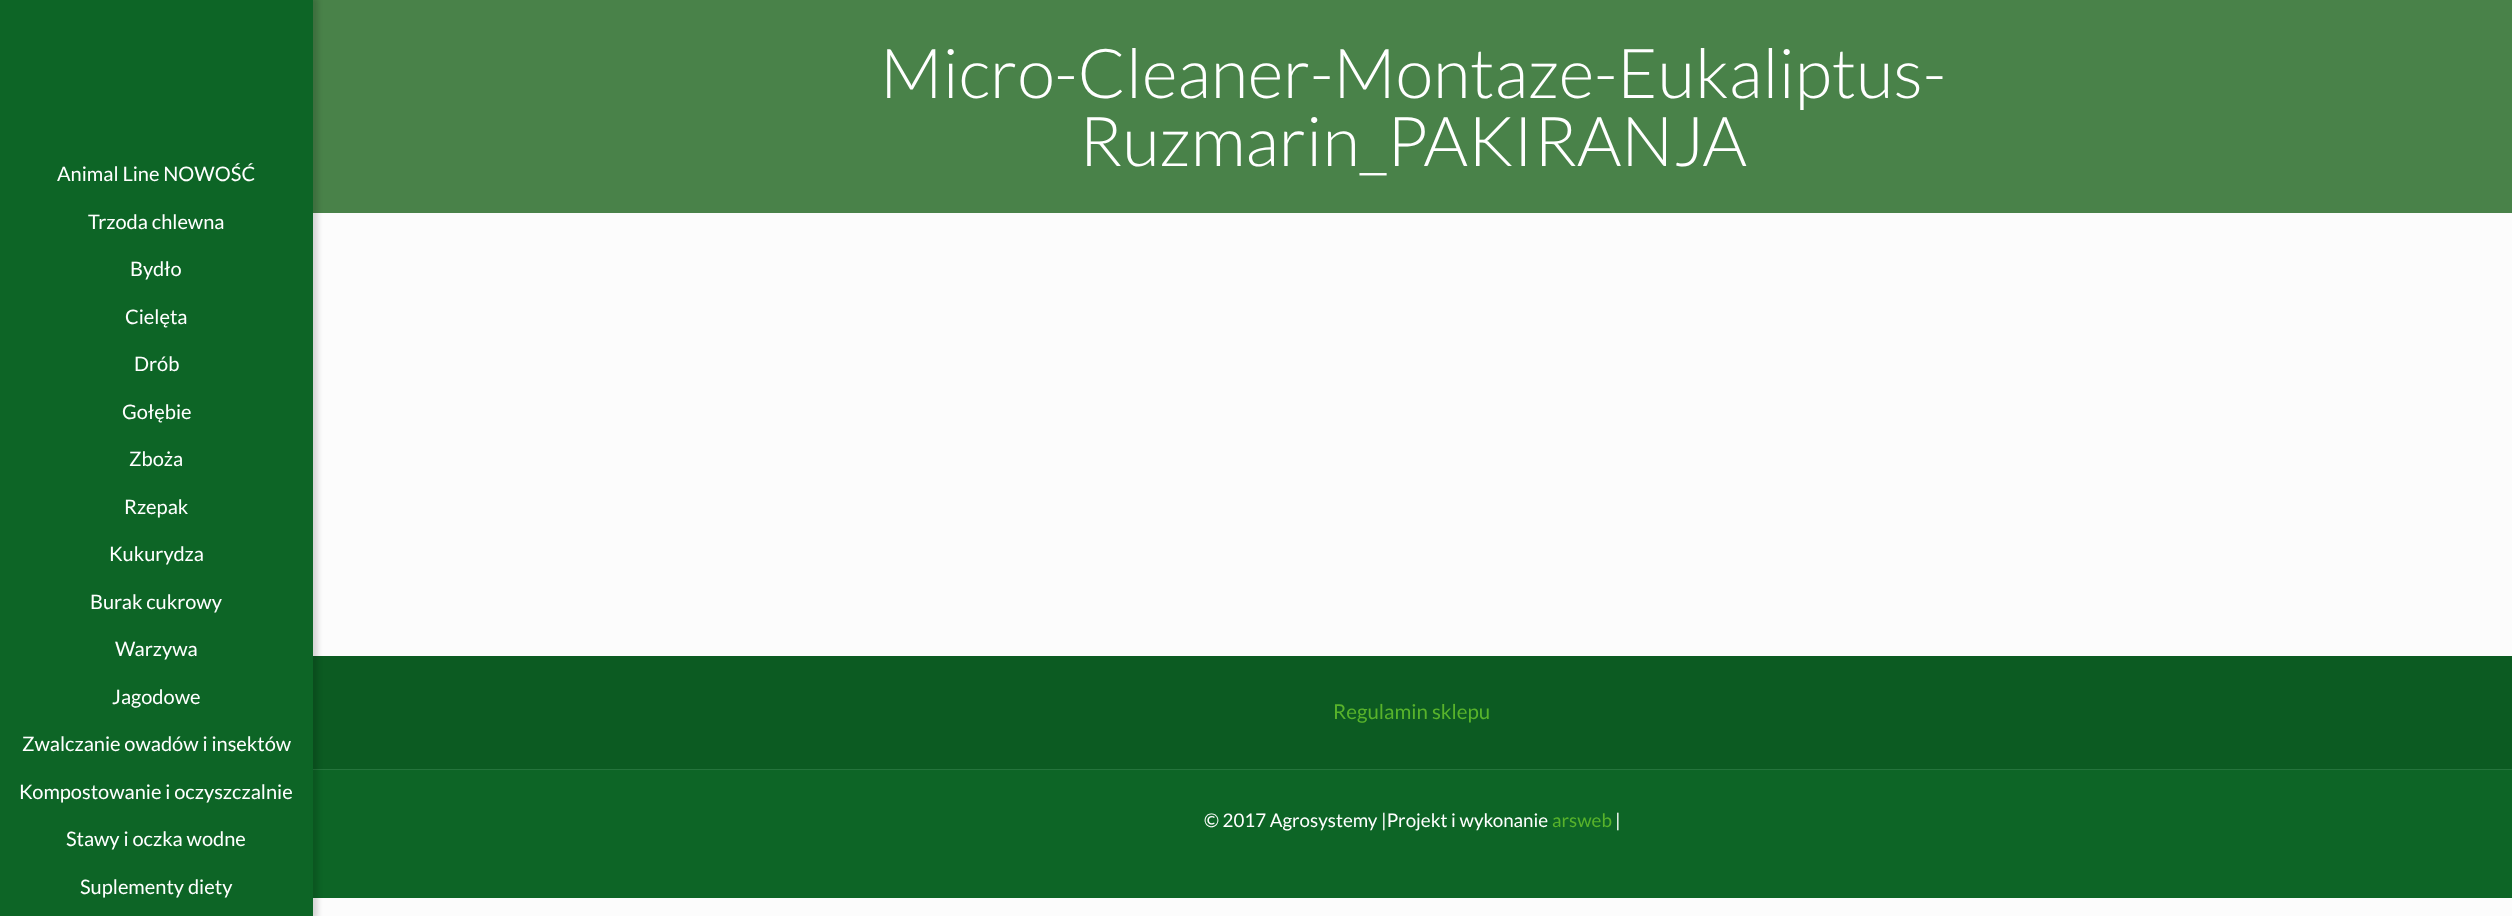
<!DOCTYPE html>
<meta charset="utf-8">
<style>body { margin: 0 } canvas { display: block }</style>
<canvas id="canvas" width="2512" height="916"></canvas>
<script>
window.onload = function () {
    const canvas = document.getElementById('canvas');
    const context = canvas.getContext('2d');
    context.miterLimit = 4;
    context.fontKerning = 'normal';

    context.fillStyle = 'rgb(252, 252, 252)';
    context.fillRect(0, 0, 2512, 916);
    context.fillStyle = 'rgb(73, 130, 73)';
    context.fillRect(313, 0, 2199, 213);
    context.fillStyle = 'rgb(13, 101, 38)';
    context.fillRect(313, 770, 2199, 128);
    context.fillStyle = 'rgb(12, 91, 34)';
    context.fillRect(313, 656, 2199, 113);
    context.fillStyle = 'rgb(37, 116, 60)';
    context.fillRect(313, 769, 2199, 1);
    context.fillStyle = 'rgba(0, 0, 0, 0.15)';
    context.filter = 'blur(2.5px)';
    context.beginPath();
    context.rect(0, -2, 318, 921);
    context.fill();
    context.filter = 'none';
    context.fillStyle = 'rgb(13, 101, 38)';
    context.fillRect(0, 0, 313, 916);
    context.font = '20px Lato';
    context.fillStyle = 'rgb(255, 255, 255)';
    context.fillText('Animal Line NOWOŚĆ', 57, 181);
    context.fillText('Trzoda chlewna', 88, 229);
    context.fillText('Bydło', 130, 276);
    context.fillText('Cielęta', 125, 324);
    context.fillText('Drób', 134, 371);
    context.fillText('Gołębie', 122, 419);
    context.fillText('Zboża', 129, 466);
    context.fillText('Rzepak', 124, 514);
    context.fillText('Kukurydza', 109, 561);
    context.fillText('Burak cukrowy', 90, 609);
    context.fillText('Warzywa', 115, 656);
    context.fillText('Jagodowe', 112, 704);
    context.fillText('Zwalczanie owadów i insektów', 22, 751);
    context.fillText('Kompostowanie i oczyszczalnie', 19, 799);
    context.fillText('Stawy i oczka wodne', 66, 846);
    context.fillText('Suplementy diety', 80, 894);
    context.font = '300 68.75px Lato';
    context.fillText('Micro-Cleaner-Montaze-Eukaliptus-', 880, 98);
    context.fillText('Ruzmarin_PAKIRANJA', 1079, 166);
    context.font = '20.5px Lato';
    context.fillStyle = 'rgb(88, 179, 43)';
    context.fillText('Regulamin sklepu', 1333, 719);
    context.font = '18.75px Lato';
    context.fillStyle = 'rgb(255, 255, 255)';
    context.fillText('© 2017 Agrosystemy |Projekt i wykonanie', 1204, 827);
    context.fillStyle = 'rgb(88, 179, 43)';
    context.fillText('arsweb', 1552, 827);
    context.fillStyle = 'rgb(255, 255, 255)';
    context.fillText('|', 1615, 827);
};
</script>
